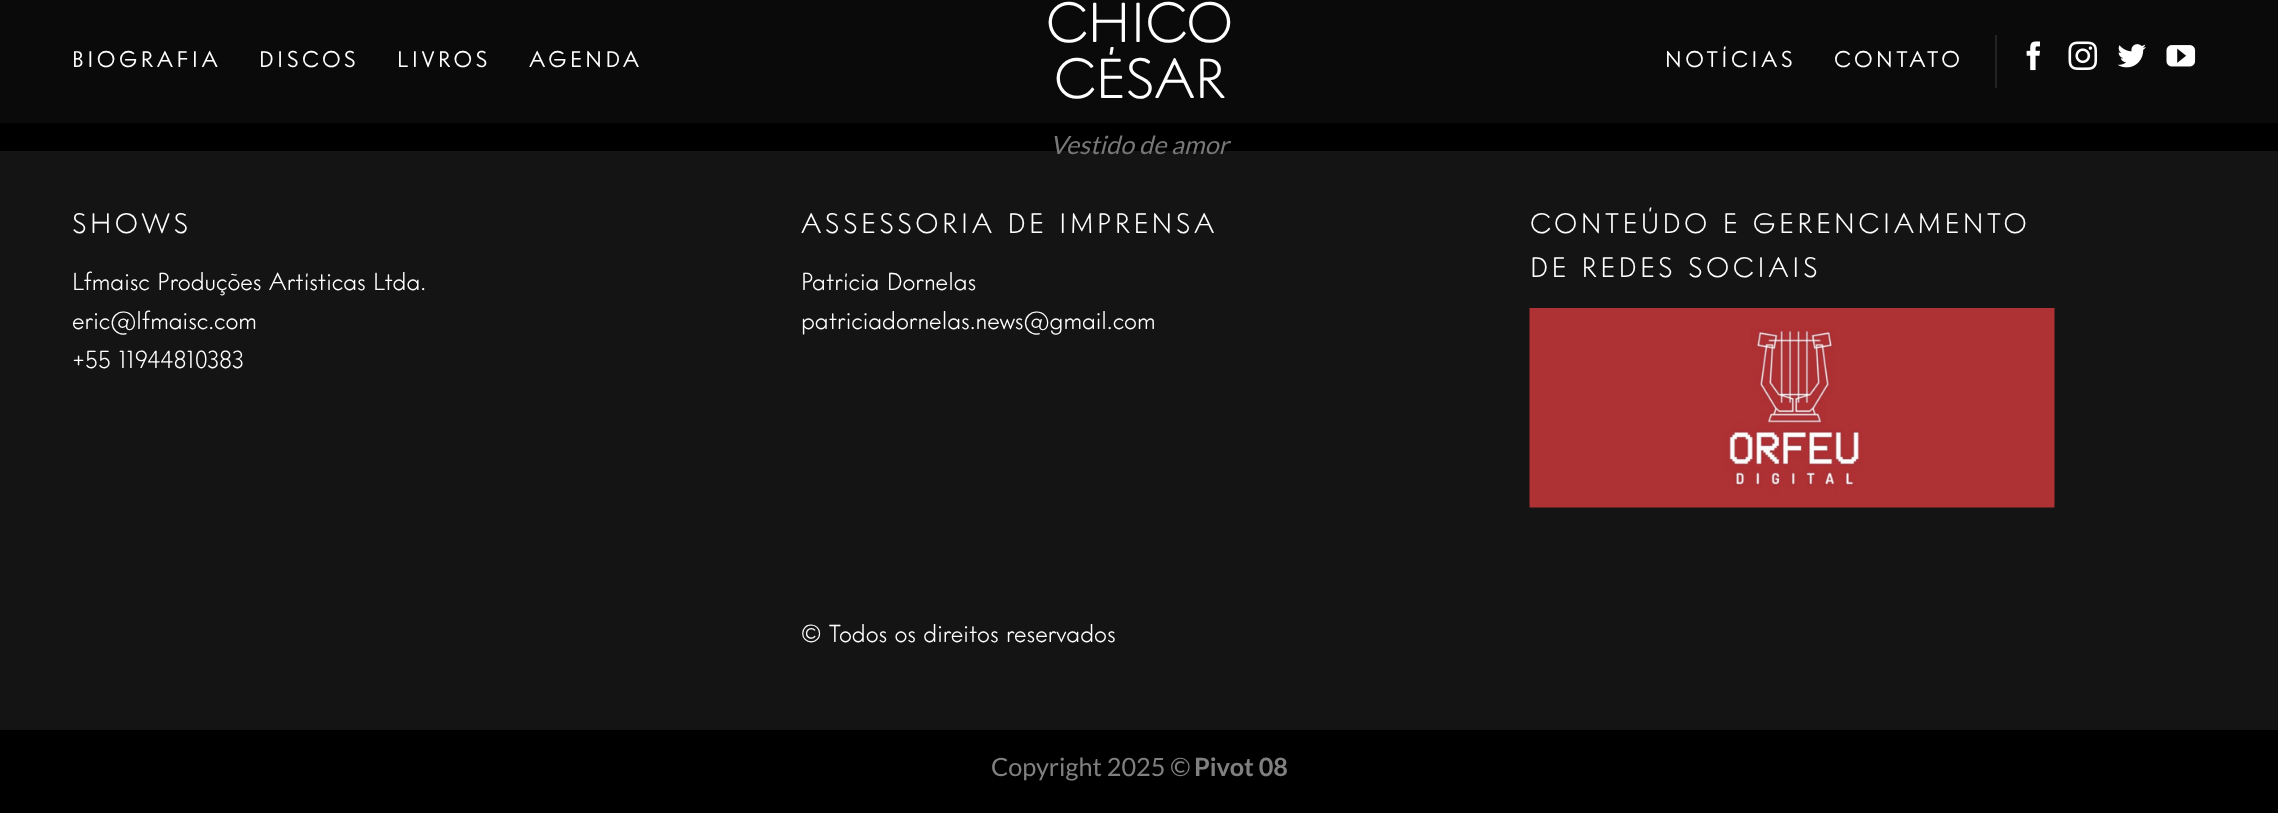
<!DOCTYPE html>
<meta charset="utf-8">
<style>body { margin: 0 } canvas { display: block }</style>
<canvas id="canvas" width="2278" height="813"></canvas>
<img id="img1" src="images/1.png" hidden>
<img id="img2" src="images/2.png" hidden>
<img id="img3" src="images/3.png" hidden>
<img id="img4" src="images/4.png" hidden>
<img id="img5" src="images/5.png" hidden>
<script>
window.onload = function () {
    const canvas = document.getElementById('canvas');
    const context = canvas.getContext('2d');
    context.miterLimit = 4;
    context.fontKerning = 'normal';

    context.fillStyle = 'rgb(0, 0, 0)';
    context.fillRect(0, 0, 2278, 813);
    context.fillStyle = 'rgb(10, 10, 10)';
    context.fillRect(0, 0, 2278, 123);
    context.fillStyle = 'rgb(35, 35, 35)';
    context.fillRect(1995, 35, 2, 53);
    context.drawImage(document.getElementById('img1'), 2026, 41, 14, 30);
    context.drawImage(document.getElementById('img2'), 2068, 41, 30, 30);
    context.drawImage(document.getElementById('img3'), 2117, 44, 29, 24);
    context.drawImage(document.getElementById('img4'), 2166, 45, 30, 22);
    context.fillStyle = 'rgb(20, 20, 20)';
    context.fillRect(0, 151, 2278, 579);
    context.drawImage(document.getElementById('img5'), 1529, 308, 526, 200);
    context.letterSpacing = '3.5px';
    context.font = '22.5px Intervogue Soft';
    context.fillStyle = 'rgb(255, 255, 255)';
    context.fillText('BIOGRAFIA', 72, 67);
    context.fillText('DISCOS', 259, 67);
    context.fillText('LIVROS', 397, 67);
    context.fillText('AGENDA', 529, 67);
    context.letterSpacing = '0px';
    context.font = '300 56px Intervogue Soft';
    context.fillText('CHICO', 1046, 42);
    context.fillText('CÉSAR', 1054, 98);
    context.font = 'italic 25.25px Lato';
    context.fillStyle = 'rgb(119, 119, 119)';
    context.fillText('Vestido de amor', 1050, 154);
    context.letterSpacing = '3.5px';
    context.font = '22.5px Intervogue Soft';
    context.fillStyle = 'rgb(255, 255, 255)';
    context.fillText('NOTÍCIAS', 1665, 67);
    context.fillText('CONTATO', 1834, 67);
    context.font = '300 28px Intervogue Soft';
    context.fillText('SHOWS', 72, 233);
    context.letterSpacing = '0px';
    context.font = '300 24.5px Intervogue Soft';
    context.fillText('Lfmaisc Produções Artísticas Ltda.', 72, 290);
    context.fillText('eric@lfmaisc.com', 72, 329);
    context.fillText('+55 11944810383', 72, 368);
    context.letterSpacing = '3.5px';
    context.font = '300 28px Intervogue Soft';
    context.fillText('ASSESSORIA DE IMPRENSA', 801, 233);
    context.letterSpacing = '0px';
    context.font = '300 24.5px Intervogue Soft';
    context.fillText('Patrícia Dornelas', 801, 290);
    context.fillText('patriciadornelas.news@gmail.com', 801, 329);
    context.fillText('© Todos os direitos reservados', 801, 642);
    context.letterSpacing = '3.5px';
    context.font = '300 28px Intervogue Soft';
    context.fillText('CONTEÚDO E GERENCIAMENTO', 1530, 233);
    context.fillText('DE REDES SOCIAIS', 1530, 277);
    context.letterSpacing = '0px';
    context.font = '25.25px Lato';
    context.fillStyle = 'rgb(128, 128, 128)';
    context.fillText('Copyright 2025 ©', 991, 776);
    context.font = 'bold 25.25px Lato';
    context.fillText('Pivot 08', 1194, 776);
};
</script>
